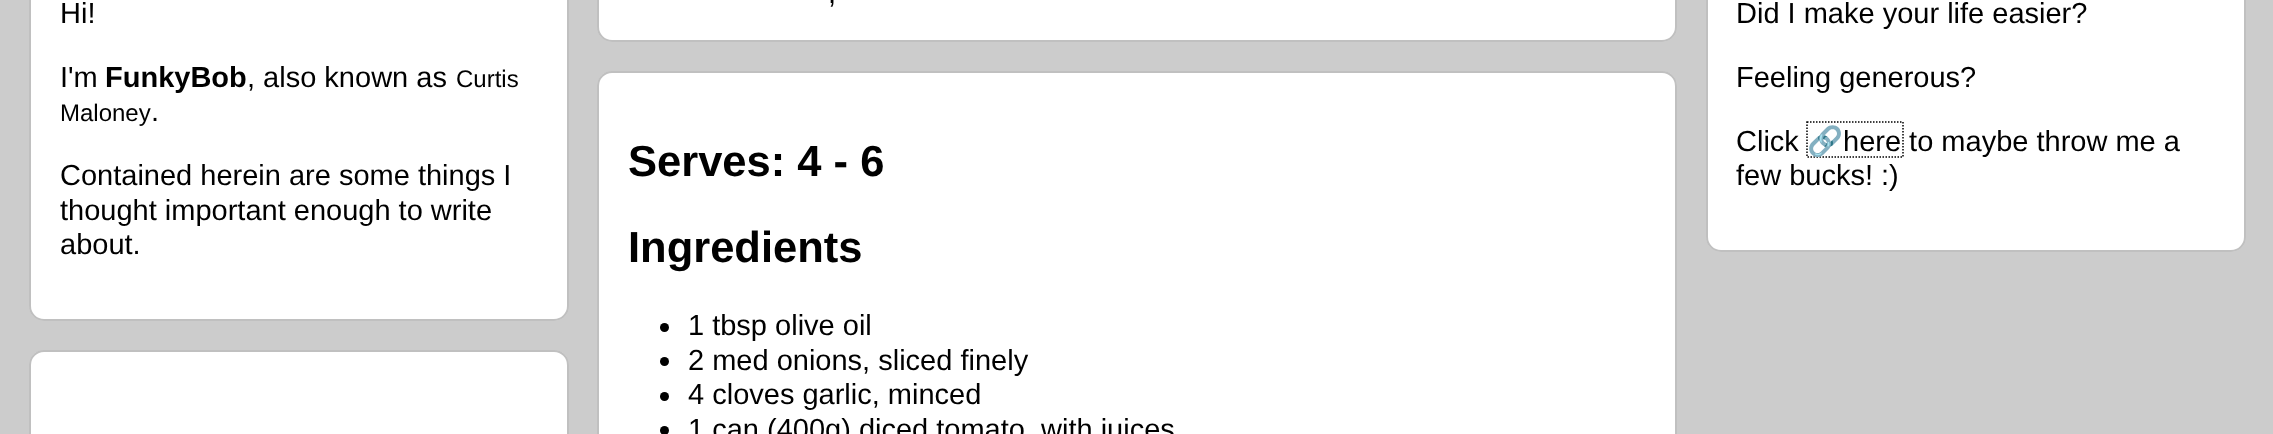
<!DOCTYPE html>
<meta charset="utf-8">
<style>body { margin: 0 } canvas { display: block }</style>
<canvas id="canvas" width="2273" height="434"></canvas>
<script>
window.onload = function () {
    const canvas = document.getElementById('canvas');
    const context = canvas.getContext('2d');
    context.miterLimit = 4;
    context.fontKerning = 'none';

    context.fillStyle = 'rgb(204, 204, 204)';
    context.fillRect(0, 0, 2273, 434);
    context.fillStyle = 'rgb(255, 255, 255)';
    context.beginPath();
    context.roundRect(29, -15, 540, 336, 15);
    context.fill();
    context.beginPath();
    context.roundRect(30, -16, 538, 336, 14);
    context.strokeStyle = 'rgba(48, 48, 48, 0.3)';
    context.lineWidth = 2;
    context.stroke();
    context.beginPath();
    context.roundRect(29, 350, 540, 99, 15);
    context.fill();
    context.beginPath();
    context.roundRect(30, 351, 538, 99, 14);
    context.stroke();
    context.beginPath();
    context.roundRect(597, -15, 1080, 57, 15);
    context.fill();
    context.beginPath();
    context.roundRect(598, -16, 1078, 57, 14);
    context.stroke();
    context.beginPath();
    context.roundRect(597, 71, 1080, 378, 15);
    context.fill();
    context.beginPath();
    context.roundRect(598, 72, 1078, 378, 14);
    context.stroke();
    context.fillStyle = 'rgb(0, 0, 0)';
    context.beginPath();
    context.arc(664.5, 327.5, 4.5, 0, 2 * Math.PI);
    context.fill();
    context.beginPath();
    context.arc(664.5, 361.5, 4.5, 0, 2 * Math.PI);
    context.fill();
    context.beginPath();
    context.arc(664.5, 396.5, 4.5, 0, 2 * Math.PI);
    context.fill();
    context.beginPath();
    context.arc(664.5, 430.5, 4.5, 0, 2 * Math.PI);
    context.fill();
    context.fillStyle = 'rgb(255, 255, 255)';
    context.beginPath();
    context.roundRect(1706, -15, 540, 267, 15);
    context.fill();
    context.beginPath();
    context.roundRect(1707, -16, 538, 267, 14);
    context.stroke();
    context.beginPath();
    context.moveTo(1807, 122);
    context.lineTo(1903, 122);
    context.lineTo(1903, 157);
    context.lineTo(1807, 157);
    context.closePath();
    context.strokeStyle = 'rgb(0, 0, 0)';
    context.lineWidth = 1.5;
    context.setLineDash([1.5, 1.5]);
    context.stroke();
    context.font = '29px Liberation Sans';
    context.fillStyle = 'rgb(0, 0, 0)';
    context.fillText('Hi!', 60, 23);
    context.fillText('I\'m', 60, 87);
    context.font = 'bold 29px Liberation Sans';
    context.fillText('FunkyBob', 105, 87);
    context.font = '29px Liberation Sans';
    context.fillText(', also known as', 247, 87);
    context.font = '24px Liberation Sans';
    context.fillText('Curtis', 456, 87);
    context.fillText('Maloney', 60, 121);
    context.font = '29px Liberation Sans';
    context.fillText('.', 151, 121);
    context.fillText('Contained herein are some things I', 60, 185);
    context.fillText('thought important enough to write', 60, 220);
    context.fillText('about.', 60, 254);
    context.fillText(',', 828, 3);
    context.font = 'bold 43.5px Liberation Sans';
    context.fillText('Serves: 4 - 6', 628, 176);
    context.fillText('Ingredients', 628, 262);
    context.font = '29px Liberation Sans';
    context.fillText('1 tbsp olive oil', 688, 335);
    context.fillText('2 med onions, sliced finely', 688, 370);
    context.fillText('4 cloves garlic, minced', 688, 404);
    context.fillText('1 can (400g) diced tomato, with juices', 688, 439);
    context.fillText('Did I make your life easier?', 1736, 23);
    context.fillText('Feeling generous?', 1736, 87);
    context.fillText('Click', 1736, 151);
    context.font = '29px Noto Color Emoji';
    context.fillText('🔗', 1807, 151);
    context.font = '29px Liberation Sans';
    context.fillText('here to maybe throw me a', 1843, 151);
    context.fillText('few bucks! :)', 1736, 185);
};
</script>
